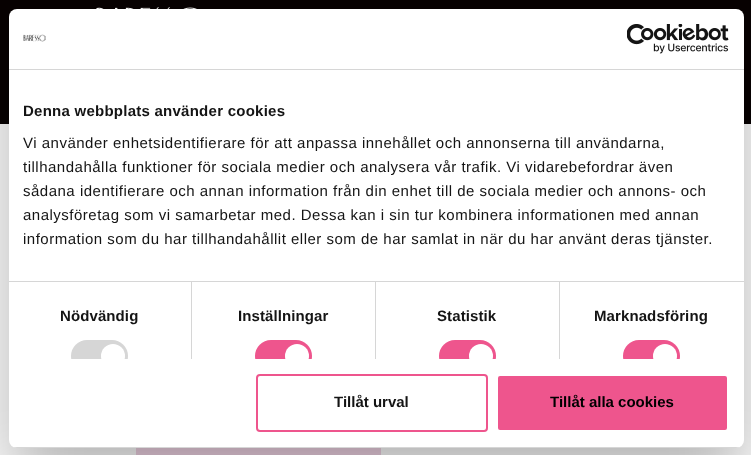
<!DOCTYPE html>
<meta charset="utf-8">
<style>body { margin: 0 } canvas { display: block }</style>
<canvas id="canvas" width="751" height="455"></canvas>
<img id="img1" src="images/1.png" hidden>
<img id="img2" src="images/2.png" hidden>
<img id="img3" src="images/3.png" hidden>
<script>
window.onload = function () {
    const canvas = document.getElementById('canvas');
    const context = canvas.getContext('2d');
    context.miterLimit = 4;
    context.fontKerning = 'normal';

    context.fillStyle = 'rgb(255, 255, 255)';
    context.fillRect(0, 0, 751, 455);
    context.fillStyle = 'rgb(8, 2, 2)';
    context.fillRect(0, 0, 751, 124);
    context.drawImage(document.getElementById('img1'), 96, 7, 101, 2);
    context.fillStyle = 'rgb(241, 212, 229)';
    context.fillRect(136, 448, 245, 7);
    context.fillStyle = 'rgba(0, 0, 0, 0.3)';
    context.filter = 'blur(34px)';
    context.beginPath();
    context.roundRect(9, 41, 735, 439, 8);
    context.fill();
    context.filter = 'none';
    context.fillStyle = 'rgb(255, 255, 255)';
    context.beginPath();
    context.roundRect(9, 9, 735, 439, 8);
    context.fill();
    context.fillStyle = 'rgb(214, 214, 214)';
    context.fillRect(9, 69, 735, 1);
    context.drawImage(document.getElementById('img2'), 23, 34, 23, 8);
    context.drawImage(document.getElementById('img3'), 627, 24, 102, 30);
    context.fillRect(9, 281, 735, 1);
    context.fillRect(191, 282, 1, 77);
    context.save();
    context.beginPath();
    context.rect(9, 70, 735, 289);
    context.clip();
    context.beginPath();
    context.roundRect(71, 340, 57, 32, 16);
    context.fill();
    context.fillStyle = 'rgb(255, 255, 255)';
    context.beginPath();
    context.arc(113, 356, 12, 0, 2 * Math.PI);
    context.fill();
    context.restore();
    context.fillRect(375, 282, 1, 77);
    context.save();
    context.beginPath();
    context.rect(9, 70, 735, 289);
    context.clip();
    context.fillStyle = 'rgb(238, 85, 141)';
    context.beginPath();
    context.roundRect(255, 340, 57, 32, 16);
    context.fill();
    context.fillStyle = 'rgb(255, 255, 255)';
    context.beginPath();
    context.arc(297, 356, 12, 0, 2 * Math.PI);
    context.fill();
    context.restore();
    context.fillRect(559, 282, 1, 77);
    context.save();
    context.beginPath();
    context.rect(9, 70, 735, 289);
    context.clip();
    context.fillStyle = 'rgb(238, 85, 141)';
    context.beginPath();
    context.roundRect(439, 340, 57, 32, 16);
    context.fill();
    context.fillStyle = 'rgb(255, 255, 255)';
    context.beginPath();
    context.arc(481, 356, 12, 0, 2 * Math.PI);
    context.fill();
    context.fillStyle = 'rgb(238, 85, 141)';
    context.beginPath();
    context.roundRect(623, 340, 57, 32, 16);
    context.fill();
    context.fillStyle = 'rgb(255, 255, 255)';
    context.beginPath();
    context.arc(665, 356, 12, 0, 2 * Math.PI);
    context.fill();
    context.restore();
    context.save();
    context.beginPath();
    context.roundRect(9, 9, 735, 439, 8);
    context.clip();
    context.fillRect(9, 447, 735, 1);
    context.restore();
    context.beginPath();
    context.roundRect(257, 375, 230, 56, 3);
    context.strokeStyle = 'rgb(238, 85, 141)';
    context.lineWidth = 2;
    context.stroke();
    context.fillStyle = 'rgb(238, 85, 141)';
    context.beginPath();
    context.roundRect(497, 375, 231, 56, 3);
    context.fill();
    context.strokeStyle = 'rgb(255, 255, 255)';
    context.stroke();
    context.letterSpacing = '0.25px';
    context.font = 'bold 15px Liberation Sans';
    context.fillStyle = 'rgb(20, 20, 20)';
    context.fillText('Denna webbplats använder cookies', 23, 116);
    context.letterSpacing = '0.5px';
    context.font = '15px Liberation Sans';
    context.fillText('Vi använder enhetsidentifierare för att anpassa innehållet och annonserna till användarna,', 23, 148);
    context.fillText('tillhandahålla funktioner för sociala medier och analysera vår trafik. Vi vidarebefordrar även', 23, 172);
    context.fillText('sådana identifierare och annan information från din enhet till de sociala medier och annons- och', 23, 196);
    context.fillText('analysföretag som vi samarbetar med. Dessa kan i sin tur kombinera informationen med annan', 23, 220);
    context.fillText('information som du har tillhandahållit eller som de har samlat in när du har använt deras tjänster.', 23, 244);
    context.letterSpacing = '0.1px';
    context.font = 'bold 15px Liberation Sans';
    context.fillText('Nödvändig', 60, 321);
    context.fillText('Inställningar', 238, 321);
    context.fillText('Statistik', 437, 321);
    context.fillText('Marknadsföring', 594, 321);
    context.letterSpacing = '0px';
    context.fillText('Tillåt urval', 334, 407);
    context.fillStyle = 'rgb(0, 0, 0)';
    context.fillText('Tillåt alla cookies', 550, 407);
};
</script>
